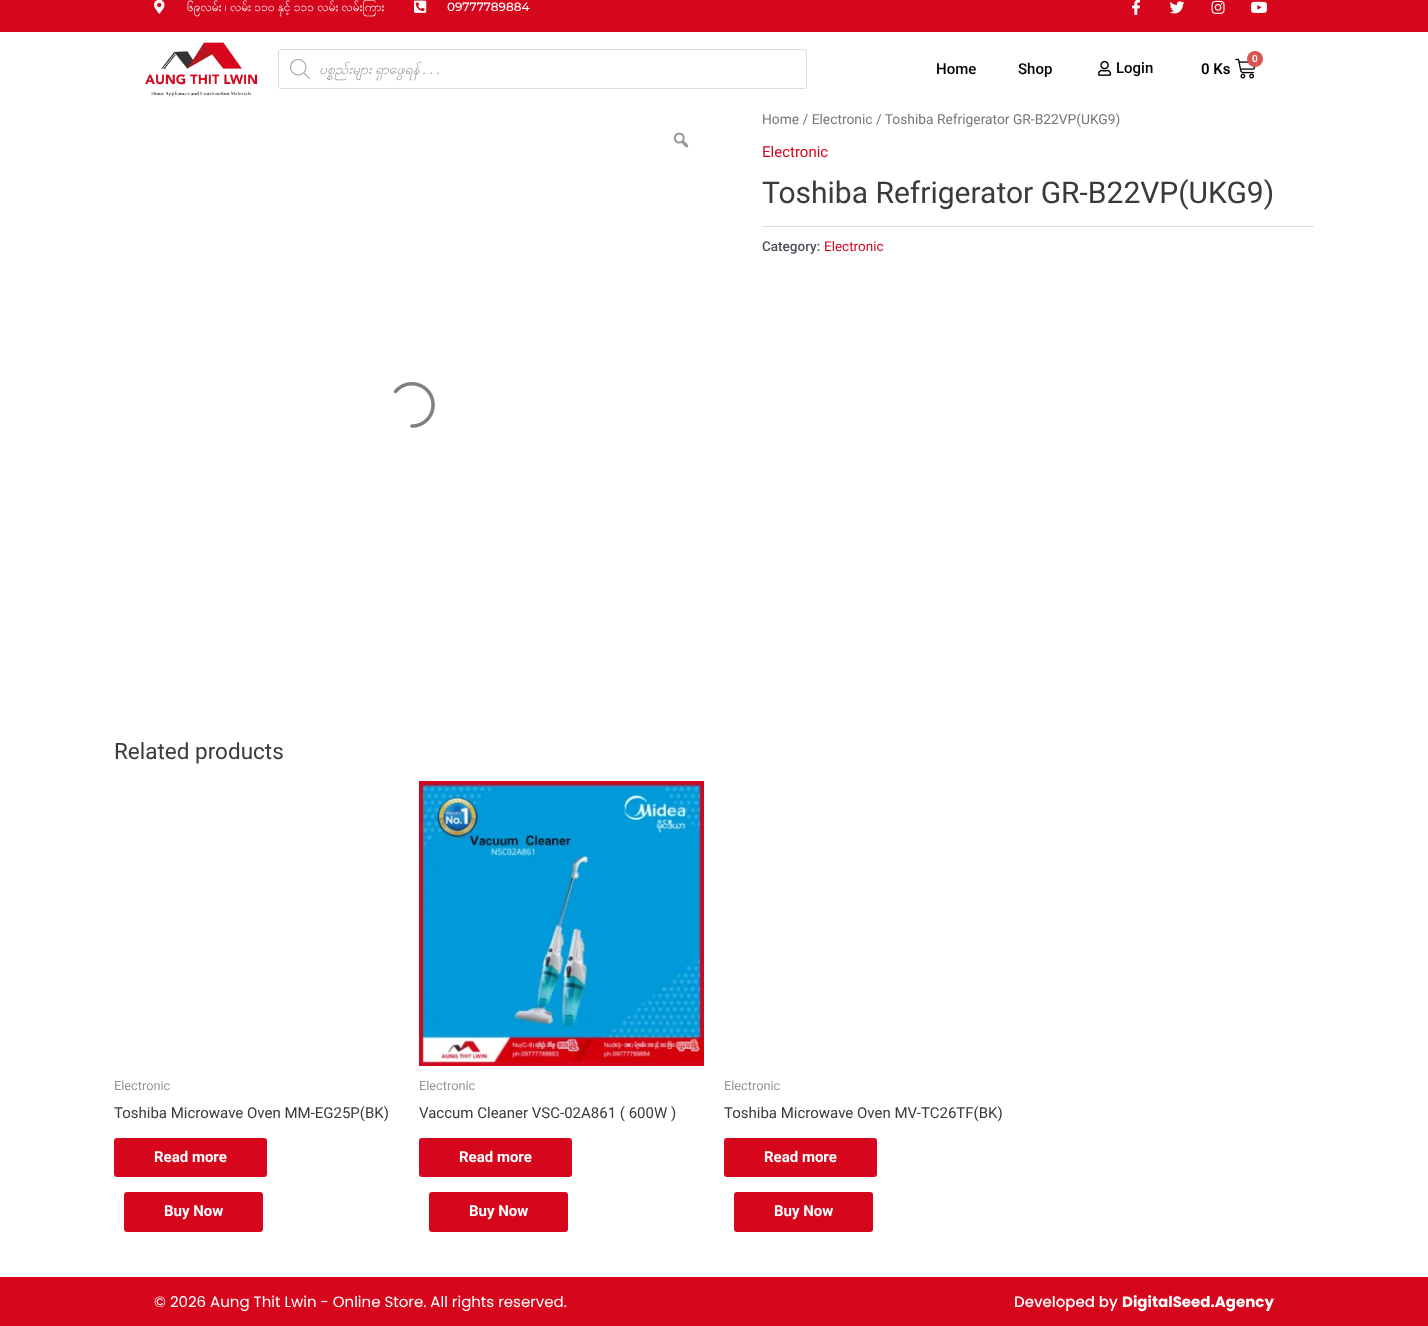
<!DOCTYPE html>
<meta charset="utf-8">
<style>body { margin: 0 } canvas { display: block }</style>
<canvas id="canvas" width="1428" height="1326"></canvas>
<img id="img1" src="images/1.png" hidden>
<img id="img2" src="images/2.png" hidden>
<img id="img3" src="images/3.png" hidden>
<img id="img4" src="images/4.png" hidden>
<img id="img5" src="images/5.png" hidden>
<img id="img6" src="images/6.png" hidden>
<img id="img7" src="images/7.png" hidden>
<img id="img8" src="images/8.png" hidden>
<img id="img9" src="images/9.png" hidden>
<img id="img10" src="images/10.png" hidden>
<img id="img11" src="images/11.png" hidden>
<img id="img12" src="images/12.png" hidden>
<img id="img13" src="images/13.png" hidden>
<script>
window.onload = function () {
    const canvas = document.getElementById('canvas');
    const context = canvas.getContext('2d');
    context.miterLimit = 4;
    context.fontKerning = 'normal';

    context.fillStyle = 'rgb(255, 255, 255)';
    context.fillRect(0, 0, 1428, 1326);
    context.fillStyle = 'rgb(214, 7, 29)';
    context.fillRect(0, 0, 1428, 32);
    context.drawImage(document.getElementById('img1'), 154, 0, 11, 14);
    context.drawImage(document.getElementById('img2'), 414, 0, 13, 13);
    context.drawImage(document.getElementById('img3'), 1132, 0, 8, 15);
    context.drawImage(document.getElementById('img4'), 1169, 1, 16, 13);
    context.drawImage(document.getElementById('img5'), 1211, 0, 14, 14);
    context.drawImage(document.getElementById('img6'), 1251, 1, 16, 12);
    context.drawImage(document.getElementById('img7'), 145, 42, 113, 55);
    context.beginPath();
    context.roundRect(278.5, 49.5, 528, 39, 2.5);
    context.strokeStyle = 'rgb(221, 221, 221)';
    context.stroke();
    context.drawImage(document.getElementById('img8'), 290, 59, 20, 20);
    context.drawImage(document.getElementById('img9'), 1098, 60, 14, 16);
    context.drawImage(document.getElementById('img10'), 1235, 58, 21, 21);
    context.fillStyle = 'rgb(217, 83, 79)';
    context.beginPath();
    context.arc(1255, 59, 8, 0, 2 * Math.PI);
    context.fill();
    context.drawImage(document.getElementById('img11'), 673, 132, 16, 16);
    context.drawImage(document.getElementById('img12'), 393, 382, 42, 46);
    context.fillStyle = 'rgb(221, 221, 221)';
    context.fillRect(762, 226, 552, 1);
    context.fillStyle = 'rgb(214, 7, 29)';
    context.beginPath();
    context.roundRect(114, 1138, 153, 39, 3);
    context.fill();
    context.beginPath();
    context.roundRect(124, 1192, 139, 40, 3);
    context.fill();
    context.drawImage(document.getElementById('img13'), 419, 781, 285, 285);
    context.beginPath();
    context.roundRect(419, 1138, 153, 39, 3);
    context.fill();
    context.beginPath();
    context.roundRect(429, 1192, 139, 40, 3);
    context.fill();
    context.beginPath();
    context.roundRect(724, 1138, 153, 39, 3);
    context.fill();
    context.beginPath();
    context.roundRect(734, 1192, 139, 40, 3);
    context.fill();
    context.fillRect(0, 1277, 1428, 49);
    context.wordSpacing = '-1.25px';
    context.font = '12px Padauk';
    context.fillStyle = 'rgb(255, 255, 255)';
    context.fillText('၆၉လမ်း ၊ လမ်း ၁၁၀ နှင့် ၁၁၁ လမ်း လမ်းကြား', 187, 11);
    context.wordSpacing = '0px';
    context.font = '500 12px Montserrat';
    context.fillText('09777789884', 447, 11);
    context.font = 'italic 14px Padauk';
    context.fillStyle = 'rgb(153, 153, 153)';
    context.fillText('ပစ္စည်းများ', 319, 74);
    context.fillText('ရှာဖွေရန်', 375, 74);
    context.font = 'italic 14px Roboto';
    context.fillText('. . .', 423, 74);
    context.font = '500 15px Roboto';
    context.fillStyle = 'rgb(0, 0, 0)';
    context.fillText('Home', 936, 74);
    context.fillText('Shop', 1018, 74);
    context.fillText('Login', 1116, 73);
    context.font = '600 10px Roboto';
    context.fillStyle = 'rgb(255, 255, 255)';
    context.fillText('0', 1252, 62);
    context.font = '600 15px Roboto';
    context.fillStyle = 'rgb(0, 0, 0)';
    context.fillText('0 Ks', 1201, 74);
    context.font = '13.8px Roboto';
    context.fillStyle = 'rgb(119, 119, 119)';
    context.fillText('Home / Electronic / Toshiba Refrigerator GR-B22VP(UKG9)', 762, 124);
    context.font = '15px Roboto';
    context.fillStyle = 'rgb(214, 7, 29)';
    context.fillText('Electronic', 762, 157);
    context.font = '30px Roboto';
    context.fillStyle = 'rgb(58, 58, 58)';
    context.fillText('Toshiba Refrigerator GR-B22VP(UKG9)', 762, 203);
    context.font = '500 13.5px Roboto';
    context.fillStyle = 'rgb(75, 79, 88)';
    context.fillText('Category:', 762, 251);
    context.font = '13.5px Roboto';
    context.fillStyle = 'rgb(214, 7, 29)';
    context.fillText('Electronic', 824, 251);
    context.font = '22.5px Roboto';
    context.fillStyle = 'rgb(58, 58, 58)';
    context.fillText('Related products', 114, 759);
    context.font = '12.75px Roboto';
    context.fillStyle = 'rgb(147, 149, 155)';
    context.fillText('Electronic', 114, 1090);
    context.font = '15px Roboto';
    context.fillStyle = 'rgb(58, 58, 58)';
    context.fillText('Toshiba Microwave Oven MM-EG25P(BK)', 114, 1118);
    context.font = 'bold 15px Roboto';
    context.fillStyle = 'rgb(255, 255, 255)';
    context.fillText('Read more', 154, 1162);
    context.fillText('Buy Now', 164, 1216);
    context.font = '12.75px Roboto';
    context.fillStyle = 'rgb(147, 149, 155)';
    context.fillText('Electronic', 419, 1090);
    context.font = '15px Roboto';
    context.fillStyle = 'rgb(58, 58, 58)';
    context.fillText('Vaccum Cleaner VSC-02A861 ( 600W )', 419, 1118);
    context.font = 'bold 15px Roboto';
    context.fillStyle = 'rgb(255, 255, 255)';
    context.fillText('Read more', 459, 1162);
    context.fillText('Buy Now', 469, 1216);
    context.font = '12.75px Roboto';
    context.fillStyle = 'rgb(147, 149, 155)';
    context.fillText('Electronic', 724, 1090);
    context.font = '15px Roboto';
    context.fillStyle = 'rgb(58, 58, 58)';
    context.fillText('Toshiba Microwave Oven MV-TC26TF(BK)', 724, 1118);
    context.font = 'bold 15px Roboto';
    context.fillStyle = 'rgb(255, 255, 255)';
    context.fillText('Read more', 764, 1162);
    context.fillText('Buy Now', 774, 1216);
    context.font = '15px Poppins';
    context.fillText('© 2026 Aung Thit Lwin - Online Store. All rights reserved.', 154, 1307);
    context.font = '500 15px Poppins';
    context.fillText('Developed by', 1014, 1307);
    context.font = 'bold 15px Poppins';
    context.fillText('DigitalSeed.Agency', 1122, 1307);
};
</script>
